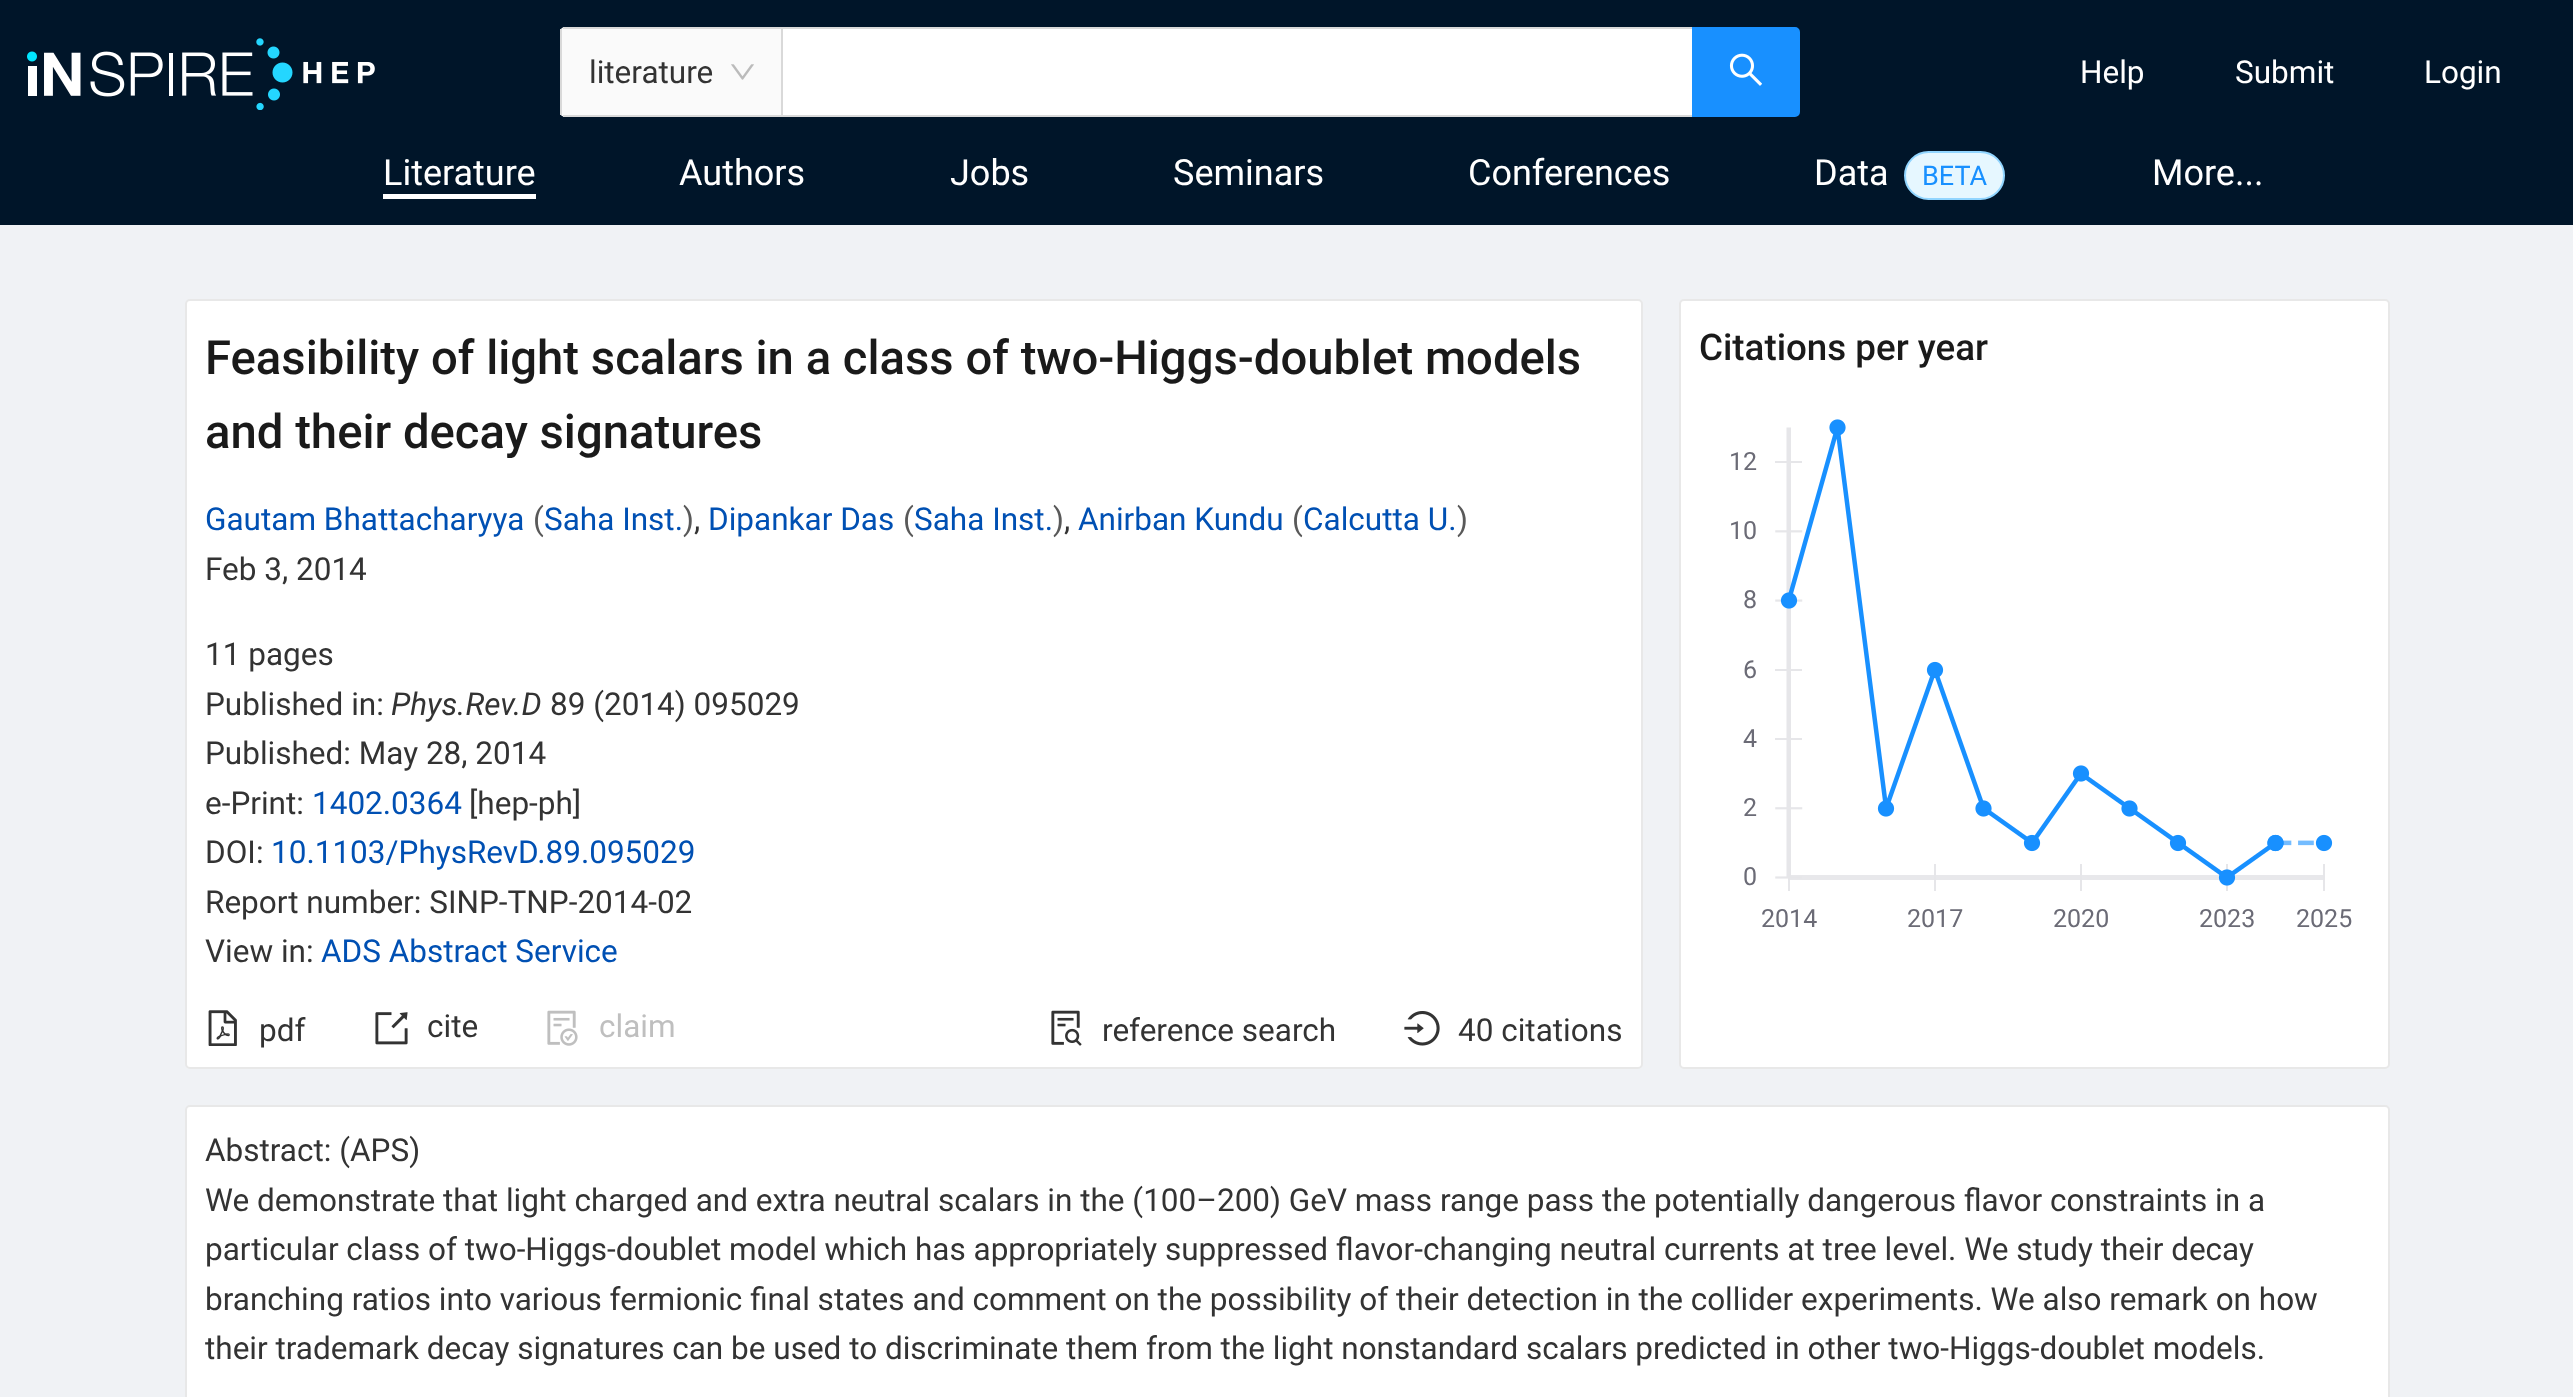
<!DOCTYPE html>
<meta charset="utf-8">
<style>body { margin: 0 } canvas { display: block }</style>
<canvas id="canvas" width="2573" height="1397"></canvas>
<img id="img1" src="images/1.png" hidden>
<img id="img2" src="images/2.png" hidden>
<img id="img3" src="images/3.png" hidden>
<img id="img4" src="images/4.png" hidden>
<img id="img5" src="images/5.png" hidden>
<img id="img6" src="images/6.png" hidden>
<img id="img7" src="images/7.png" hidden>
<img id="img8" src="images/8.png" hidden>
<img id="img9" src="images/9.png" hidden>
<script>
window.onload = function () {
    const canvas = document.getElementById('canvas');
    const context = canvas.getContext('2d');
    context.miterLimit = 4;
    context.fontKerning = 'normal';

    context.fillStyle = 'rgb(240, 242, 245)';
    context.fillRect(0, 0, 2573, 1397);
    context.fillStyle = 'rgb(0, 21, 41)';
    context.fillRect(0, 0, 2573, 225);
    context.drawImage(document.getElementById('img1'), 27, 38, 348, 72);
    context.fillStyle = 'rgb(250, 250, 250)';
    context.beginPath();
    context.roundRect(560, 27, 221, 90, [5, 0, 0, 5]);
    context.fill();
    context.fillStyle = 'rgb(217, 217, 217)';
    context.fillRect(563, 27, 218, 2);
    context.fillRect(563, 115, 218, 2);
    context.fillRect(560, 29, 2, 86);
    context.drawImage(document.getElementById('img2'), 731, 64, 23, 16);
    context.fillStyle = 'rgb(255, 255, 255)';
    context.beginPath();
    context.rect(782, 28, 911, 88);
    context.fill();
    context.strokeStyle = 'rgb(217, 217, 217)';
    context.lineWidth = 2;
    context.stroke();
    context.fillStyle = 'rgb(24, 144, 255)';
    context.beginPath();
    context.roundRect(1693, 28, 106, 88, [0, 4, 4, 0]);
    context.fill();
    context.strokeStyle = 'rgb(24, 144, 255)';
    context.stroke();
    context.drawImage(document.getElementById('img3'), 1729, 53, 33, 33);
    context.fillStyle = 'rgb(255, 255, 255)';
    context.fillRect(383, 194, 153, 5);
    context.fillStyle = 'rgb(230, 247, 255)';
    context.beginPath();
    context.roundRect(1905, 152, 99, 47, 23.5);
    context.fill();
    context.strokeStyle = 'rgb(145, 213, 255)';
    context.stroke();
    context.fillStyle = 'rgb(255, 255, 255)';
    context.beginPath();
    context.roundRect(186, 300, 1456, 768, 4);
    context.fill();
    context.strokeStyle = 'rgb(232, 232, 232)';
    context.stroke();
    context.drawImage(document.getElementById('img4'), 208, 1010, 29, 36);
    context.drawImage(document.getElementById('img5'), 375, 1012, 33, 33);
    context.drawImage(document.getElementById('img6'), 547, 1010, 31, 36);
    context.drawImage(document.getElementById('img7'), 1051, 1010, 31, 36);
    context.drawImage(document.getElementById('img8'), 1404, 1011, 36, 35);
    context.beginPath();
    context.roundRect(1680, 300, 709, 768, 4);
    context.fill();
    context.stroke();
    context.drawImage(document.getElementById('img9'), 1775, 419, 558, 472);
    context.beginPath();
    context.roundRect(186, 1106, 2203, 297, 4);
    context.fill();
    context.stroke();
    context.font = '31.5px Roboto';
    context.fillStyle = 'rgb(51, 51, 51)';
    context.fillText('literature', 589, 83);
    context.fillStyle = 'rgb(255, 255, 255)';
    context.fillText('Help', 2080, 83);
    context.fillText('Submit', 2235, 83);
    context.fillText('Login', 2424, 83);
    context.font = '36px Roboto';
    context.fillText('Literature', 383, 185);
    context.fillText('Authors', 679, 185);
    context.fillText('Jobs', 950, 185);
    context.fillText('Seminars', 1173, 185);
    context.fillText('Conferences', 1468, 185);
    context.fillText('Data', 1814, 185);
    context.font = '27px Roboto';
    context.fillStyle = 'rgb(24, 144, 255)';
    context.fillText('BETA', 1922, 185);
    context.font = '36px Roboto';
    context.fillStyle = 'rgb(255, 255, 255)';
    context.fillText('More...', 2152, 185);
    context.font = '500 47.25px Roboto';
    context.fillStyle = 'rgb(26, 26, 26)';
    context.fillText('Feasibility of light scalars in a class of two-Higgs-doublet models', 205, 374);
    context.fillText('and their decay signatures', 205, 448);
    context.font = '31.5px Roboto';
    context.fillStyle = 'rgb(0, 80, 179)';
    context.fillText('Gautam Bhattacharyya', 205, 530);
    context.fillStyle = 'rgb(89, 89, 89)';
    context.fillText('(', 533, 530);
    context.fillStyle = 'rgb(0, 80, 179)';
    context.fillText('Saha Inst.', 544, 530);
    context.fillStyle = 'rgb(89, 89, 89)';
    context.fillText(')', 683, 530);
    context.fillStyle = 'rgb(51, 51, 51)';
    context.fillText(',', 694, 530);
    context.fillStyle = 'rgb(0, 80, 179)';
    context.fillText('Dipankar Das', 708, 530);
    context.fillStyle = 'rgb(89, 89, 89)';
    context.fillText('(', 903, 530);
    context.fillStyle = 'rgb(0, 80, 179)';
    context.fillText('Saha Inst.', 914, 530);
    context.fillStyle = 'rgb(89, 89, 89)';
    context.fillText(')', 1053, 530);
    context.fillStyle = 'rgb(51, 51, 51)';
    context.fillText(',', 1064, 530);
    context.fillStyle = 'rgb(0, 80, 179)';
    context.fillText('Anirban Kundu', 1078, 530);
    context.fillStyle = 'rgb(89, 89, 89)';
    context.fillText('(', 1292, 530);
    context.fillStyle = 'rgb(0, 80, 179)';
    context.fillText('Calcutta U.', 1303, 530);
    context.fillStyle = 'rgb(89, 89, 89)';
    context.fillText(')', 1457, 530);
    context.fillStyle = 'rgb(51, 51, 51)';
    context.fillText('Feb 3, 2014', 205, 580);
    context.fillText('11 pages', 205, 665);
    context.fillText('Published in:', 205, 715);
    context.font = 'italic 31.5px Roboto';
    context.fillText('Phys.Rev.D', 391, 715);
    context.font = '31.5px Roboto';
    context.fillText('89 (2014) 095029', 550, 715);
    context.fillText('Published: May 28, 2014', 205, 764);
    context.fillText('e-Print:', 205, 814);
    context.fillStyle = 'rgb(0, 80, 179)';
    context.fillText('1402.0364', 312, 814);
    context.fillStyle = 'rgb(51, 51, 51)';
    context.fillText('[hep-ph]', 469, 814);
    context.fillText('DOI:', 205, 863);
    context.fillStyle = 'rgb(0, 80, 179)';
    context.fillText('10.1103/PhysRevD.89.095029', 271, 863);
    context.fillStyle = 'rgb(51, 51, 51)';
    context.fillText('Report number: SINP-TNP-2014-02', 205, 913);
    context.fillText('View in:', 205, 962);
    context.fillStyle = 'rgb(0, 80, 179)';
    context.fillText('ADS Abstract Service', 321, 962);
    context.fillStyle = 'rgb(51, 51, 51)';
    context.fillText('pdf', 259, 1041);
    context.fillText('cite', 427, 1037);
    context.fillStyle = 'rgb(191, 191, 191)';
    context.fillText('claim', 599, 1037);
    context.fillStyle = 'rgb(51, 51, 51)';
    context.fillText('reference search', 1102, 1041);
    context.fillText('40 citations', 1458, 1041);
    context.font = '500 36.75px Roboto';
    context.fillStyle = 'rgb(26, 26, 26)';
    context.fillText('Citations per year', 1699, 360);
    context.font = '25px Roboto';
    context.fillStyle = 'rgb(107, 107, 118)';
    context.fillText('12', 1729, 470);
    context.fillText('10', 1729, 539);
    context.fillText('8', 1743, 608);
    context.fillText('6', 1743, 678);
    context.fillText('4', 1743, 747);
    context.fillText('2', 1743, 816);
    context.fillText('0', 1743, 885);
    context.fillText('2014', 1761, 927);
    context.fillText('2017', 1907, 927);
    context.fillText('2020', 2053, 927);
    context.fillText('2023', 2199, 927);
    context.fillText('2025', 2296, 927);
    context.font = '31.5px Roboto';
    context.fillStyle = 'rgb(51, 51, 51)';
    context.fillText('Abstract: (APS)', 205, 1161);
    context.fillText('We demonstrate that light charged and extra neutral scalars in the (100–200) GeV mass range pass the potentially dangerous flavor constraints in a', 205, 1211);
    context.fillText('particular class of two-Higgs-doublet model which has appropriately suppressed flavor-changing neutral currents at tree level. We study their decay', 205, 1260);
    context.fillText('branching ratios into various fermionic final states and comment on the possibility of their detection in the collider experiments. We also remark on how', 205, 1310);
    context.fillText('their trademark decay signatures can be used to discriminate them from the light nonstandard scalars predicted in other two-Higgs-doublet models.', 205, 1359);
};
</script>
